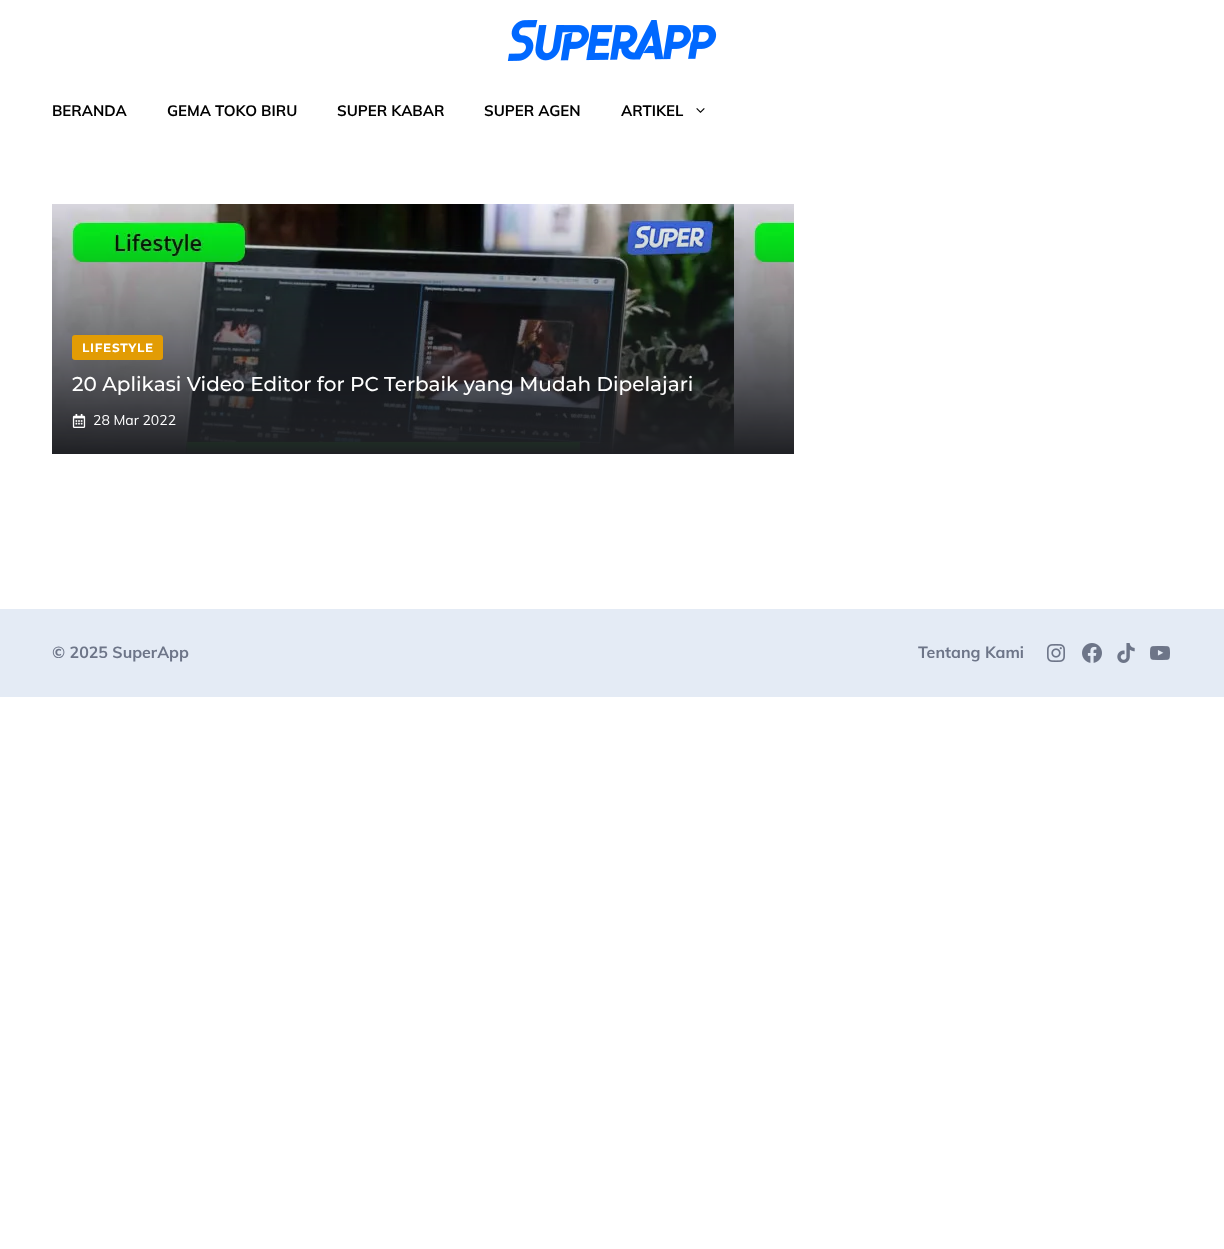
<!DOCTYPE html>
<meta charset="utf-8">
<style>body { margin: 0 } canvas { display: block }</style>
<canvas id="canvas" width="1224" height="1249"></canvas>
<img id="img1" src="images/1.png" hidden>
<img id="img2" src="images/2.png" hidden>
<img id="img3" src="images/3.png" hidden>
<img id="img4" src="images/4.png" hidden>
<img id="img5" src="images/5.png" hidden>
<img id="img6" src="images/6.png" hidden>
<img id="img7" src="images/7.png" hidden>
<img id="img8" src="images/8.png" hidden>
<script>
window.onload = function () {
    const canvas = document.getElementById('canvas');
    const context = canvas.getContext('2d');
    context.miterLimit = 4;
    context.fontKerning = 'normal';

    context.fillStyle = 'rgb(255, 255, 255)';
    context.fillRect(0, 0, 1224, 1249);
    context.drawImage(document.getElementById('img1'), 507, 20, 210, 41);
    context.drawImage(document.getElementById('img2'), 696, 108, 9, 5);
    context.drawImage(document.getElementById('img3'), 52, 204, 742, 250);
    context.fillStyle = 'rgb(226, 156, 4)';
    context.beginPath();
    context.roundRect(72, 335, 91, 25, 3);
    context.fill();
    context.drawImage(document.getElementById('img4'), 72, 414, 14, 14);
    context.fillStyle = 'rgb(228, 235, 245)';
    context.fillRect(0, 609, 1224, 88);
    context.drawImage(document.getElementById('img5'), 1047, 644, 18, 18);
    context.drawImage(document.getElementById('img6'), 1082, 643, 20, 20);
    context.drawImage(document.getElementById('img7'), 1117, 643, 18, 20);
    context.drawImage(document.getElementById('img8'), 1150, 646, 20, 14);
    context.font = 'bold 15px Muli';
    context.fillStyle = 'rgb(0, 0, 0)';
    context.fillText('BERANDA', 52, 116);
    context.fillText('GEMA TOKO BIRU', 167, 116);
    context.fillText('SUPER KABAR', 337, 116);
    context.fillText('SUPER AGEN', 484, 116);
    context.fillText('ARTIKEL', 621, 116);
    context.letterSpacing = '0.75px';
    context.font = 'bold 12px Montserrat';
    context.fillStyle = 'rgb(255, 255, 255)';
    context.fillText('LIFESTYLE', 82, 352);
    context.letterSpacing = '0px';
    context.font = '500 20px Montserrat';
    context.fillText('20 Aplikasi Video Editor for PC Terbaik yang Mudah Dipelajari', 72, 391);
    context.font = '14px Muli';
    context.fillText('28 Mar 2022', 93, 425);
    context.font = 'bold 16px Muli';
    context.fillStyle = 'rgb(109, 117, 136)';
    context.fillText('© 2025 SuperApp', 52, 658);
    context.fillText('Tentang Kami', 918, 658);
};
</script>
